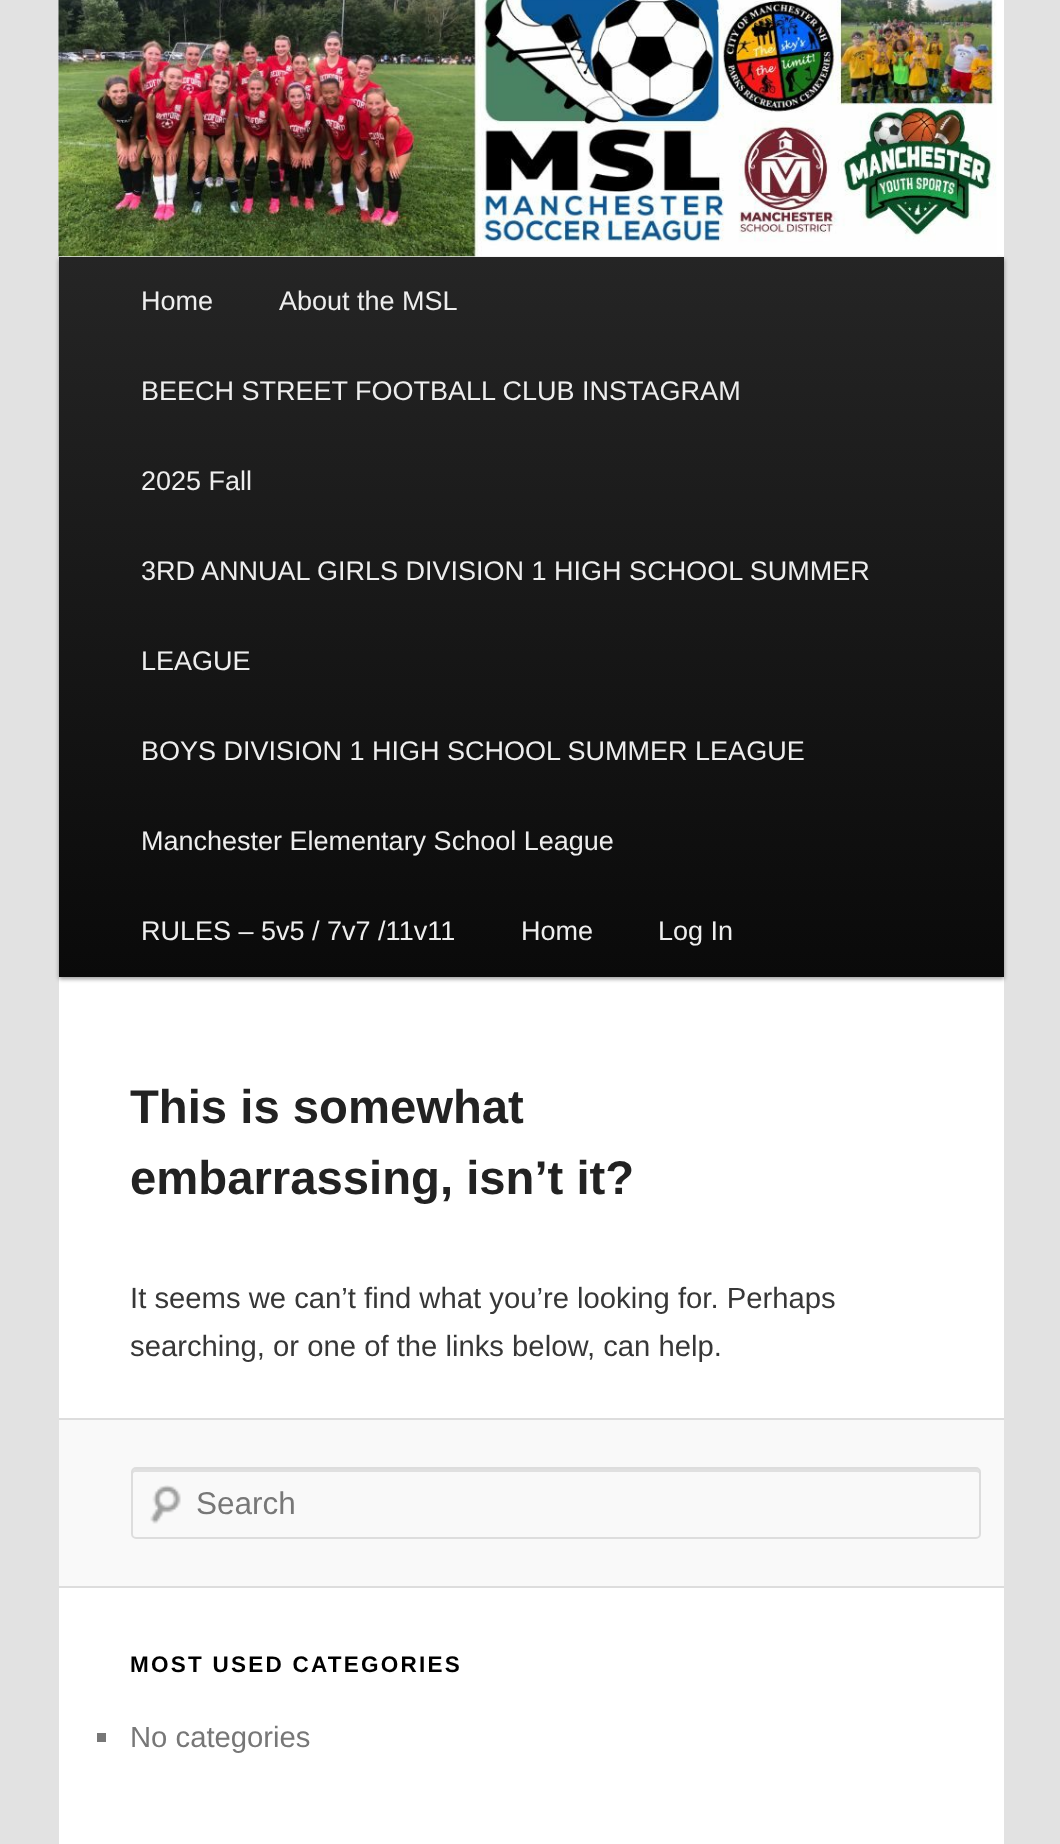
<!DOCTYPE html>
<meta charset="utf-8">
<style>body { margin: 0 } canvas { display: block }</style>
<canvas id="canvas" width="1060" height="1844"></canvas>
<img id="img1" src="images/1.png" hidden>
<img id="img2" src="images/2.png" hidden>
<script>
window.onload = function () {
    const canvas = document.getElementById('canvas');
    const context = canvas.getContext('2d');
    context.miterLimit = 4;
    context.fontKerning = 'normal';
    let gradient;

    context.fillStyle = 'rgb(226, 226, 226)';
    context.fillRect(0, 0, 1060, 1844);
    context.fillStyle = 'rgb(255, 255, 255)';
    context.fillRect(59, 0, 945, 1844);
    context.fillStyle = 'rgba(0, 0, 0, 0.4)';
    context.filter = 'blur(2px)';
    context.beginPath();
    context.rect(59, 259, 945, 720);
    context.fill();
    context.filter = 'none';
    context.drawImage(document.getElementById('img1'), 58, 0, 939, 257);
    gradient = context.createLinearGradient(531, 256, 531, 977);
    gradient.addColorStop(0, 'rgb(37, 37, 37)');
    gradient.addColorStop(1, 'rgb(10, 10, 10)');
    context.fillStyle = gradient;
    context.fillRect(59, 257, 945, 720);
    context.fillStyle = 'rgb(249, 249, 249)';
    context.fillRect(59, 1420, 945, 166);
    context.fillStyle = 'rgb(221, 221, 221)';
    context.fillRect(59, 1418, 945, 2);
    context.fillRect(59, 1586, 945, 2);
    context.drawImage(document.getElementById('img2'), 150, 1485, 31, 39);
    context.fillStyle = 'rgb(224, 224, 224)';
    context.beginPath();
    context.moveTo(135, 1472);
    context.lineTo(976, 1472);
    context.bezierCurveTo(978, 1472, 979, 1473, 979, 1474);
    context.lineTo(979, 1471);
    context.bezierCurveTo(979, 1470, 978, 1469, 977, 1469);
    context.lineTo(135, 1469);
    context.bezierCurveTo(134, 1469, 133, 1470, 133, 1471);
    context.lineTo(133, 1474);
    context.bezierCurveTo(133, 1473, 134, 1472, 135, 1472);
    context.closePath();
    context.fill();
    context.beginPath();
    context.roundRect(132, 1468, 848, 70, 4);
    context.strokeStyle = 'rgb(221, 221, 221)';
    context.lineWidth = 2;
    context.stroke();
    context.fillStyle = 'rgb(119, 119, 119)';
    context.fillRect(97, 1733, 9, 9);
    context.font = '27px Liberation Sans';
    context.fillStyle = 'rgb(238, 238, 238)';
    context.fillText('Home', 141, 310);
    context.fillText('About the MSL', 279, 310);
    context.fillText('BEECH STREET FOOTBALL CLUB INSTAGRAM', 141, 400);
    context.fillText('2025 Fall', 141, 490);
    context.fillText('3RD ANNUAL GIRLS DIVISION 1 HIGH SCHOOL SUMMER', 141, 580);
    context.fillText('LEAGUE', 141, 670);
    context.fillText('BOYS DIVISION 1 HIGH SCHOOL SUMMER LEAGUE', 141, 760);
    context.fillText('Manchester Elementary School League', 141, 850);
    context.fillText('RULES – 5v5 / 7v7 /11v11', 141, 940);
    context.fillText('Home', 521, 940);
    context.fillText('Log In', 658, 940);
    context.font = 'bold 47.25px Liberation Sans';
    context.fillStyle = 'rgb(34, 34, 34)';
    context.fillText('This is somewhat', 130, 1123);
    context.fillText('embarrassing, isn’t it?', 130, 1194);
    context.font = '29.25px Liberation Sans';
    context.fillStyle = 'rgb(55, 55, 55)';
    context.fillText('It seems we can’t find what you’re looking for. Perhaps', 130, 1308);
    context.fillText('searching, or one of the links below, can help.', 130, 1356);
    context.font = '31.5px Liberation Sans';
    context.fillStyle = 'rgb(119, 119, 119)';
    context.fillText('Search', 196, 1514);
    context.letterSpacing = '2.25px';
    context.font = 'bold 22.5px Liberation Sans';
    context.fillStyle = 'rgb(0, 0, 0)';
    context.fillText('MOST USED CATEGORIES', 130, 1672);
    context.letterSpacing = '0px';
    context.font = '29.25px Liberation Sans';
    context.fillStyle = 'rgb(119, 119, 119)';
    context.fillText('No categories', 130, 1747);
};
</script>
